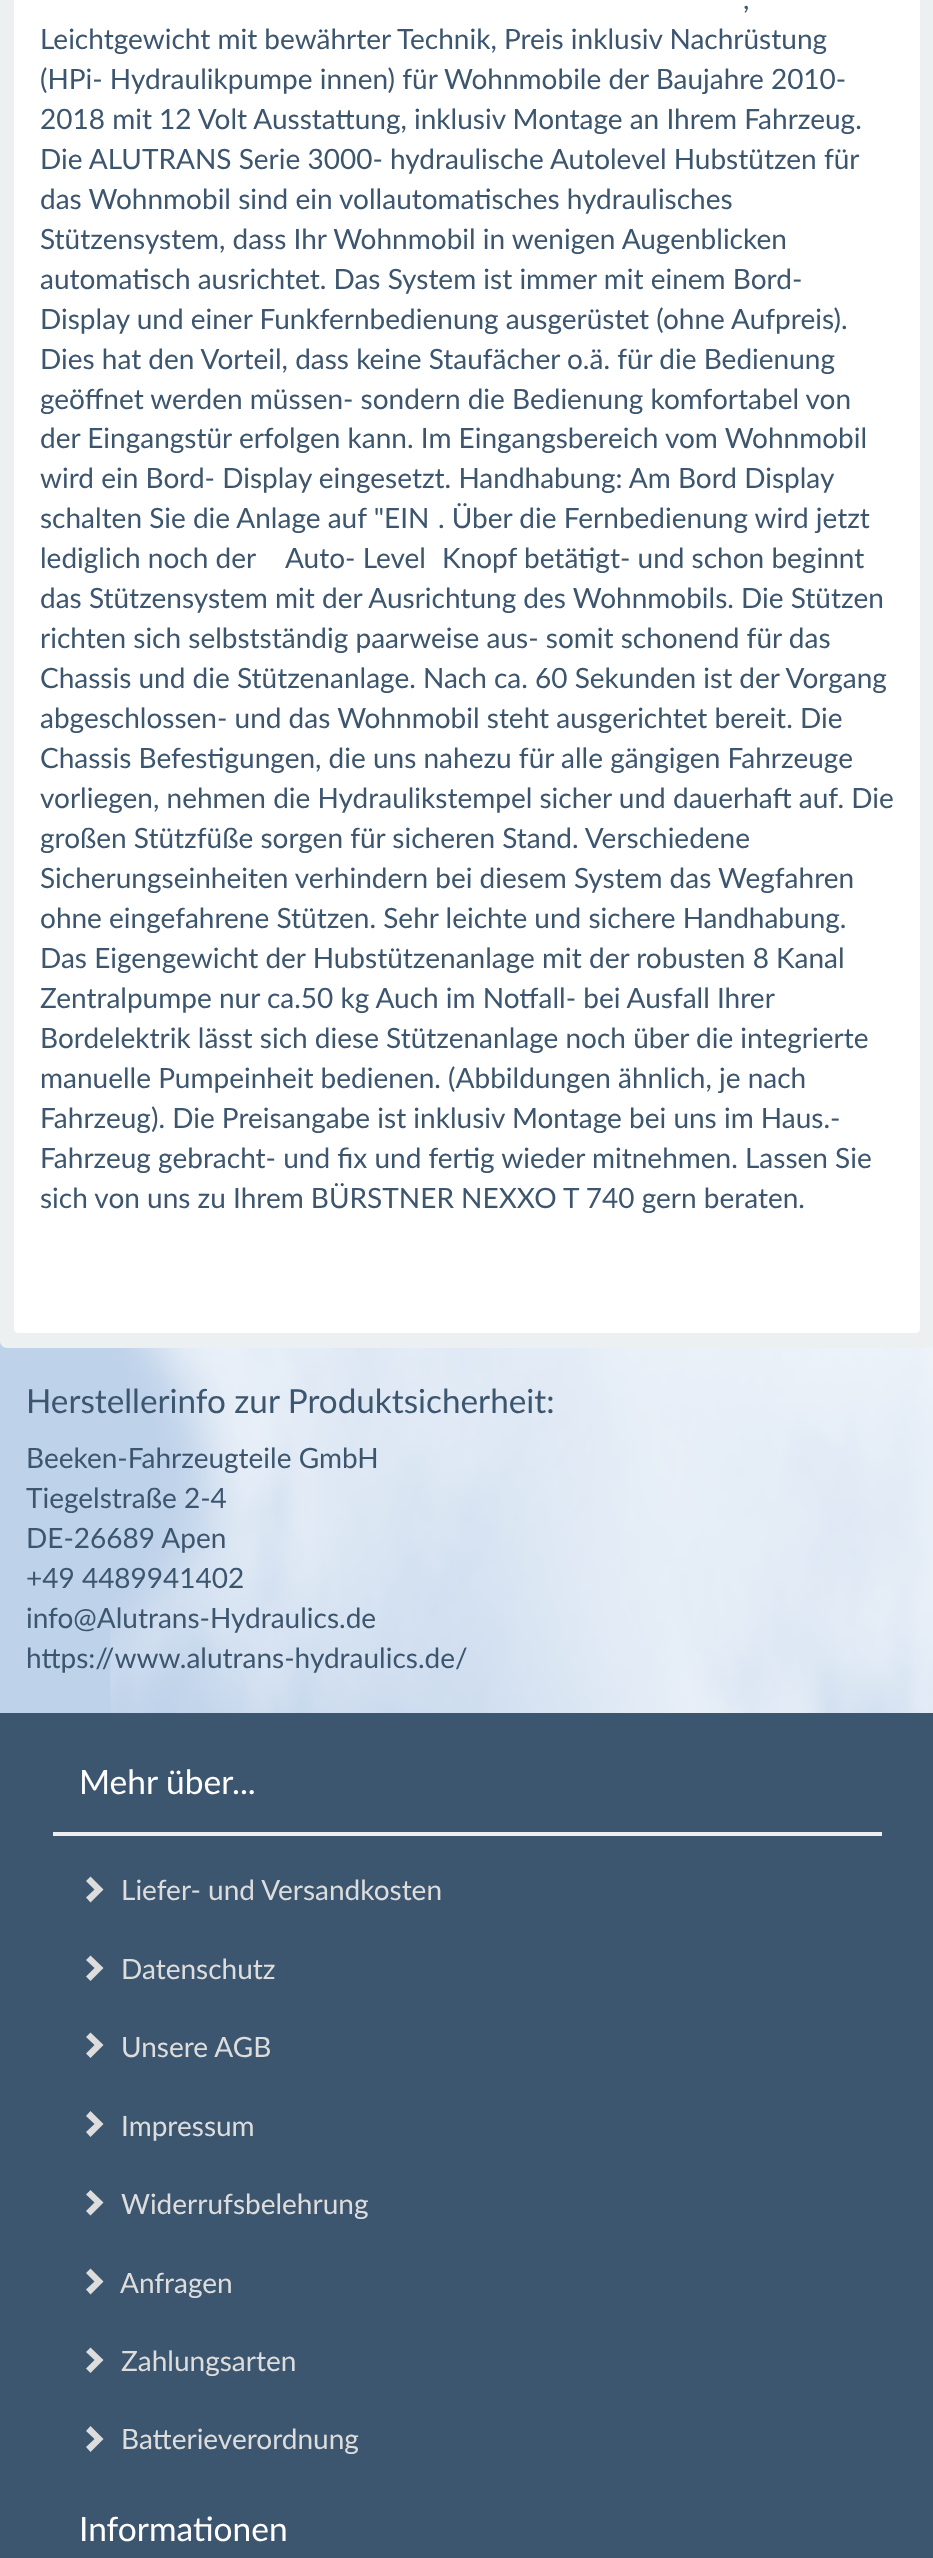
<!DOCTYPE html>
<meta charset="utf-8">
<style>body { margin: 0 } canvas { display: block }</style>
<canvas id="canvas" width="933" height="2558"></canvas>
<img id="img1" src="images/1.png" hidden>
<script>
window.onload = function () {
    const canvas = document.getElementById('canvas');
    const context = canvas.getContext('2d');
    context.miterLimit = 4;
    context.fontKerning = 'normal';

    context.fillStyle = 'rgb(190, 210, 234)';
    context.fillRect(0, 0, 933, 2558);
    context.drawImage(document.getElementById('img1'), 110, 1346, 823, 367);
    context.fillStyle = 'rgb(236, 240, 241)';
    context.beginPath();
    context.roundRect(0, -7, 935, 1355, 7);
    context.fill();
    context.fillStyle = 'rgb(255, 255, 255)';
    context.beginPath();
    context.moveTo(13, -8);
    context.lineTo(921, -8);
    context.lineTo(921, 1328);
    context.bezierCurveTo(921, 1331.5, 918.5, 1334, 915, 1334);
    context.lineTo(19, 1334);
    context.bezierCurveTo(15.5, 1334, 13, 1331.5, 13, 1328);
    context.closePath();
    context.fill();
    context.strokeStyle = 'rgb(236, 240, 241)';
    context.lineWidth = 2;
    context.stroke();
    context.fillStyle = 'rgb(61, 86, 111)';
    context.fillRect(0, 1713, 933, 845);
    context.fillStyle = 'rgb(238, 238, 238)';
    context.fillRect(53, 1832, 829, 4);
    context.fillStyle = 'rgb(221, 221, 221)';
    context.beginPath();
    context.moveTo(103.5, 1889.5);
    context.lineTo(90.5, 1902.5);
    context.lineTo(86, 1897.5);
    context.lineTo(94.5, 1889.5);
    context.lineTo(86, 1881);
    context.lineTo(90.5, 1876.5);
    context.closePath();
    context.fill();
    context.beginPath();
    context.moveTo(103.5, 1968);
    context.lineTo(90.5, 1981);
    context.lineTo(86, 1976.5);
    context.lineTo(94.5, 1968);
    context.lineTo(86, 1960);
    context.lineTo(90.5, 1955.5);
    context.closePath();
    context.fill();
    context.beginPath();
    context.moveTo(103.5, 2045);
    context.lineTo(90.5, 2058);
    context.lineTo(86, 2053.5);
    context.lineTo(94.5, 2045);
    context.lineTo(86, 2037);
    context.lineTo(90.5, 2032.5);
    context.closePath();
    context.fill();
    context.beginPath();
    context.moveTo(103.5, 2124);
    context.lineTo(90.5, 2137);
    context.lineTo(86, 2132);
    context.lineTo(94.5, 2124);
    context.lineTo(86, 2116);
    context.lineTo(90.5, 2111);
    context.closePath();
    context.fill();
    context.beginPath();
    context.moveTo(103.5, 2202.5);
    context.lineTo(90.5, 2215.5);
    context.lineTo(86, 2211);
    context.lineTo(94.5, 2202.5);
    context.lineTo(86, 2194.5);
    context.lineTo(90.5, 2190);
    context.closePath();
    context.fill();
    context.beginPath();
    context.moveTo(103.5, 2281.5);
    context.lineTo(90.5, 2294.5);
    context.lineTo(86, 2289.5);
    context.lineTo(94.5, 2281.5);
    context.lineTo(86, 2273);
    context.lineTo(90.5, 2268.5);
    context.closePath();
    context.fill();
    context.beginPath();
    context.moveTo(103.5, 2360);
    context.lineTo(90.5, 2373);
    context.lineTo(86, 2368.5);
    context.lineTo(94.5, 2360);
    context.lineTo(86, 2352);
    context.lineTo(90.5, 2347.5);
    context.closePath();
    context.fill();
    context.beginPath();
    context.moveTo(103.5, 2439);
    context.lineTo(90.5, 2452);
    context.lineTo(86, 2447);
    context.lineTo(94.5, 2439);
    context.lineTo(86, 2431);
    context.lineTo(90.5, 2426);
    context.closePath();
    context.fill();
    context.font = '28px Lato';
    context.fillStyle = 'rgb(61, 86, 111)';
    context.fillText(',', 743, 9);
    context.fillText('Leichtgewicht mit bewährter Technik, Preis inklusiv Nachrüstung', 40, 49);
    context.fillText('(HPi- Hydraulikpumpe innen) für Wohnmobile der Baujahre 2010-', 40, 89);
    context.fillText('2018 mit 12 Volt Ausstattung, inklusiv Montage an Ihrem Fahrzeug.', 40, 129);
    context.fillText('Die ALUTRANS Serie 3000- hydraulische Autolevel Hubstützen für', 40, 169);
    context.fillText('das Wohnmobil sind ein vollautomatisches hydraulisches', 40, 209);
    context.fillText('Stützensystem, dass Ihr Wohnmobil in wenigen Augenblicken', 40, 249);
    context.fillText('automatisch ausrichtet. Das System ist immer mit einem Bord-', 40, 289);
    context.fillText('Display und einer Funkfernbedienung ausgerüstet (ohne Aufpreis).', 40, 329);
    context.fillText('Dies hat den Vorteil, dass keine Staufächer o.ä. für die Bedienung', 40, 369);
    context.fillText('geöffnet werden müssen- sondern die Bedienung komfortabel von', 40, 409);
    context.fillText('der Eingangstür erfolgen kann. Im Eingangsbereich vom Wohnmobil', 40, 448);
    context.fillText('wird ein Bord- Display eingesetzt. Handhabung: Am Bord Display', 40, 488);
    context.fillText('schalten Sie die Anlage auf "EIN', 40, 528);
    context.fillText('. Über die Fernbedienung wird jetzt', 438, 528);
    context.fillText('lediglich noch der', 40, 568);
    context.fillText('Auto- Level', 285, 568);
    context.fillText('Knopf betätigt- und schon beginnt', 442, 568);
    context.fillText('das Stützensystem mit der Ausrichtung des Wohnmobils. Die Stützen', 40, 608);
    context.fillText('richten sich selbstständig paarweise aus- somit schonend für das', 40, 648);
    context.fillText('Chassis und die Stützenanlage. Nach ca. 60 Sekunden ist der Vorgang', 40, 688);
    context.fillText('abgeschlossen- und das Wohnmobil steht ausgerichtet bereit. Die', 40, 728);
    context.fillText('Chassis Befestigungen, die uns nahezu für alle gängigen Fahrzeuge', 40, 768);
    context.fillText('vorliegen, nehmen die Hydraulikstempel sicher und dauerhaft auf. Die', 40, 808);
    context.fillText('großen Stützfüße sorgen für sicheren Stand. Verschiedene', 40, 848);
    context.fillText('Sicherungseinheiten verhindern bei diesem System das Wegfahren', 40, 888);
    context.fillText('ohne eingefahrene Stützen. Sehr leichte und sichere Handhabung.', 40, 928);
    context.fillText('Das Eigengewicht der Hubstützenanlage mit der robusten 8 Kanal', 40, 968);
    context.fillText('Zentralpumpe nur ca.50 kg Auch im Notfall- bei Ausfall Ihrer', 40, 1008);
    context.fillText('Bordelektrik lässt sich diese Stützenanlage noch über die integrierte', 40, 1048);
    context.fillText('manuelle Pumpeinheit bedienen. (Abbildungen ähnlich, je nach', 40, 1088);
    context.fillText('Fahrzeug). Die Preisangabe ist inklusiv Montage bei uns im Haus.-', 40, 1128);
    context.fillText('Fahrzeug gebracht- und fix und fertig wieder mitnehmen. Lassen Sie', 40, 1168);
    context.fillText('sich von uns zu Ihrem BÜRSTNER NEXXO T 740 gern beraten.', 40, 1208);
    context.font = '33.25px Lato';
    context.fillText('Herstellerinfo zur Produktsicherheit:', 26, 1413);
    context.font = '28px Lato';
    context.fillText('Beeken-Fahrzeugteile GmbH', 26, 1468);
    context.fillText('Tiegelstraße 2-4', 26, 1508);
    context.fillText('DE-26689 Apen', 26, 1548);
    context.fillText('+49 4489941402', 26, 1588);
    context.fillText('info@Alutrans-Hydraulics.de', 26, 1628);
    context.fillText('https://www.alutrans-hydraulics.de/', 26, 1668);
    context.font = '33.5px Lato';
    context.fillStyle = 'rgb(255, 255, 255)';
    context.fillText('Mehr über...', 79, 1794);
    context.font = '28px Lato';
    context.fillStyle = 'rgb(221, 221, 221)';
    context.fillText('Liefer- und Versandkosten', 121, 1900);
    context.fillText('Datenschutz', 121, 1979);
    context.fillText('Unsere AGB', 121, 2057);
    context.fillText('Impressum', 121, 2136);
    context.fillText('Widerrufsbelehrung', 121, 2214);
    context.fillText('Anfragen', 120, 2293);
    context.fillText('Zahlungsarten', 121, 2371);
    context.fillText('Batterieverordnung', 121, 2449);
    context.font = '33.5px Lato';
    context.fillStyle = 'rgb(255, 255, 255)';
    context.fillText('Informationen', 79, 2541);
};
</script>
